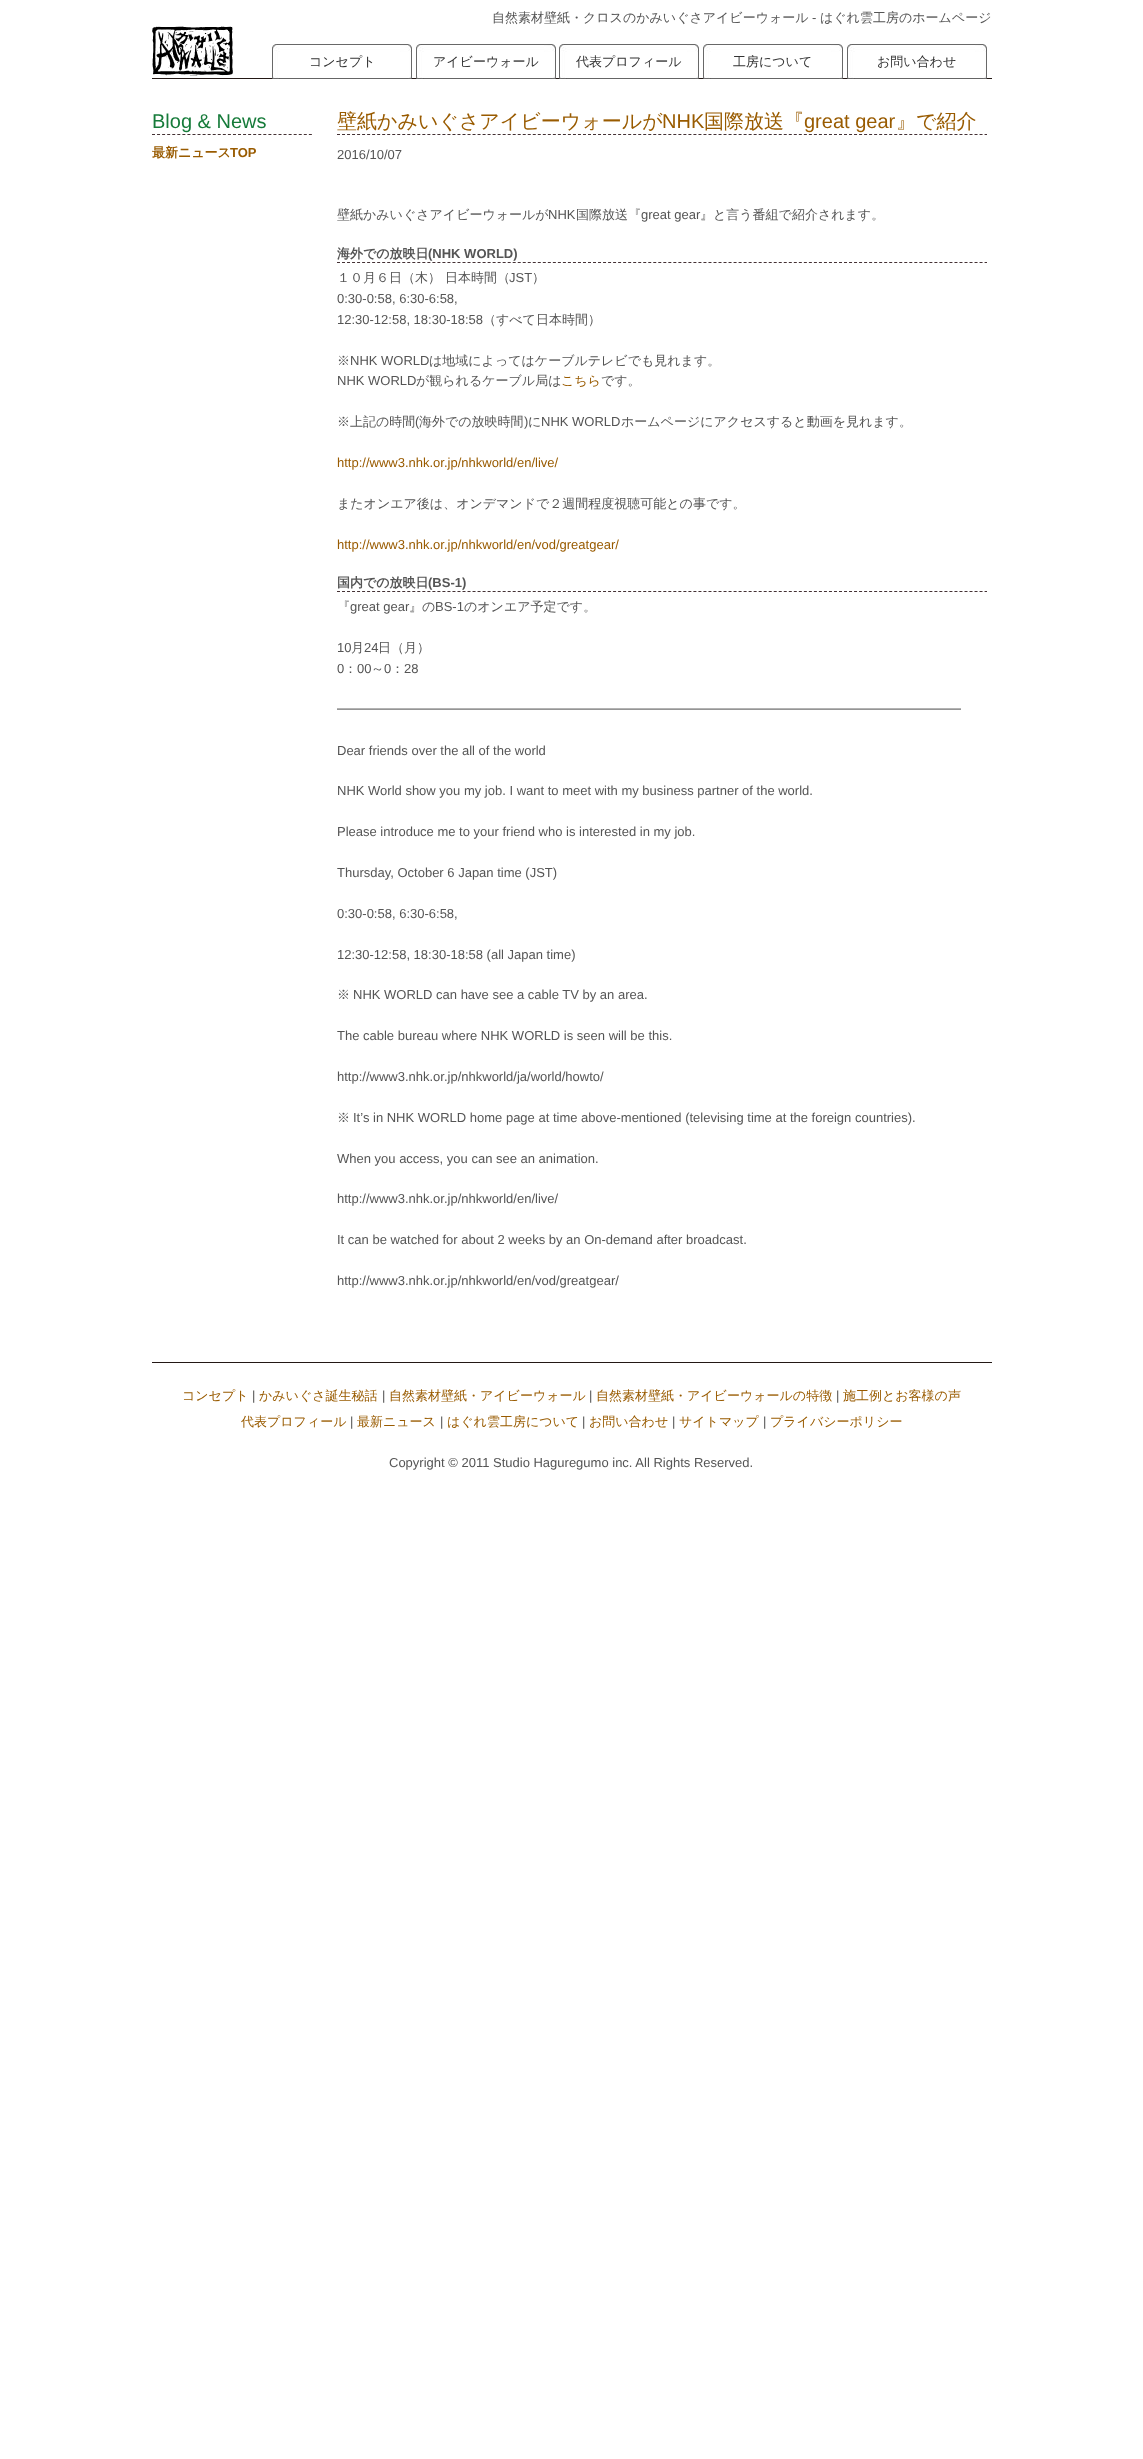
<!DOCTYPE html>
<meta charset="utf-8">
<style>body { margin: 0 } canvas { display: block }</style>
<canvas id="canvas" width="1143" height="2459"></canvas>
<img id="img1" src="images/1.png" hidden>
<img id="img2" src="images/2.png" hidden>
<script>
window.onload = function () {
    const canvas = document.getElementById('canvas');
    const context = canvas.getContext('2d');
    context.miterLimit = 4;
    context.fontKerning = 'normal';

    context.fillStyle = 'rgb(255, 255, 255)';
    context.fillRect(0, 0, 1143, 2459);
    context.fillStyle = 'rgb(35, 24, 21)';
    context.fillRect(152, 78, 840, 1);
    context.drawImage(document.getElementById('img1'), 152, 26, 81, 50);
    context.drawImage(document.getElementById('img2'), 272, 44, 140, 35);
    context.drawImage(document.getElementById('img2'), 416, 44, 140, 35);
    context.drawImage(document.getElementById('img2'), 559, 44, 140, 35);
    context.drawImage(document.getElementById('img2'), 703, 44, 140, 35);
    context.drawImage(document.getElementById('img2'), 847, 44, 140, 35);
    context.beginPath();
    context.moveTo(152, 134.5);
    context.lineTo(312, 134.5);
    context.strokeStyle = 'rgb(68, 49, 52)';
    context.setLineDash([3, 2.06]);
    context.stroke();
    context.beginPath();
    context.moveTo(337, 134.5);
    context.lineTo(987, 134.5);
    context.setLineDash([3, 2.02]);
    context.stroke();
    context.beginPath();
    context.moveTo(337, 262.5);
    context.lineTo(987, 262.5);
    context.stroke();
    context.beginPath();
    context.moveTo(337, 591.5);
    context.lineTo(987, 591.5);
    context.stroke();
    context.fillRect(152, 1362, 840, 1);
    context.font = '500 13px WenQuanYi Zen Hei';
    context.fillStyle = 'rgb(85, 85, 85)';
    context.fillText('自然素材壁紙・クロスのかみいぐさアイビーウォール', 492, 22);
    context.font = '13px Liberation Sans';
    context.fillText('-', 812, 22);
    context.font = '500 13px WenQuanYi Zen Hei';
    context.fillText('はぐれ雲工房のホームページ', 820, 22);
    context.fillStyle = 'rgb(51, 51, 51)';
    context.fillText('コンセプト', 309, 66);
    context.fillText('アイビーウォール', 433, 66);
    context.fillText('代表プロフィール', 576, 66);
    context.fillText('工房について', 733, 66);
    context.fillText('お問い合わせ', 877, 66);
    context.font = '20px Liberation Sans';
    context.fillStyle = 'rgb(22, 123, 58)';
    context.fillText('Blog & News', 152, 128);
    context.font = 'bold 13px WenQuanYi Zen Hei';
    context.fillStyle = 'rgb(153, 91, 0)';
    context.fillText('最新ニュース', 152, 157);
    context.font = 'bold 13px Liberation Sans';
    context.fillText('TOP', 230, 157);
    context.font = '500 20px WenQuanYi Zen Hei';
    context.fillText('壁紙かみいぐさアイビーウォールが', 337, 128);
    context.font = '20px Liberation Sans';
    context.fillText('NHK', 662, 128);
    context.font = '500 20px WenQuanYi Zen Hei';
    context.fillText('国際放送『', 704, 128);
    context.font = '20px Liberation Sans';
    context.fillText('great gear', 804, 128);
    context.font = '500 20px WenQuanYi Zen Hei';
    context.fillText('』で紹介', 896, 128);
    context.font = '13px Liberation Sans';
    context.fillStyle = 'rgb(85, 85, 85)';
    context.fillText('2016/10/07', 337, 159);
    context.font = '500 13px WenQuanYi Zen Hei';
    context.fillText('壁紙かみいぐさアイビーウォールが', 337, 219);
    context.font = '13px Liberation Sans';
    context.fillText('NHK', 548, 219);
    context.font = '500 13px WenQuanYi Zen Hei';
    context.fillText('国際放送『', 576, 219);
    context.font = '13px Liberation Sans';
    context.fillText('great gear', 641, 219);
    context.font = '500 13px WenQuanYi Zen Hei';
    context.fillText('』と言う番組で紹介されます。', 700, 219);
    context.font = 'bold 13px WenQuanYi Zen Hei';
    context.fillText('海外での放映日', 337, 258);
    context.font = 'bold 13px Liberation Sans';
    context.fillText('(NHK WORLD)', 428, 258);
    context.font = '500 13px WenQuanYi Zen Hei';
    context.fillText('１０月６日（木） 日本時間（', 337, 282);
    context.font = '13px Liberation Sans';
    context.fillText('JST', 509, 282);
    context.font = '500 13px WenQuanYi Zen Hei';
    context.fillText('）', 532, 282);
    context.font = '13px Liberation Sans';
    context.fillText('0:30-0:58, 6:30-6:58,', 337, 303);
    context.fillText('12:30-12:58, 18:30-18:58', 337, 324);
    context.font = '500 13px WenQuanYi Zen Hei';
    context.fillText('（すべて日本時間）', 483, 324);
    context.fillText('※', 337, 365);
    context.font = '13px Liberation Sans';
    context.fillText('NHK WORLD', 350, 365);
    context.font = '500 13px WenQuanYi Zen Hei';
    context.fillText('は地域によってはケーブルテレビでも見れます。', 429, 365);
    context.font = '13px Liberation Sans';
    context.fillText('NHK WORLD', 337, 385);
    context.font = '500 13px WenQuanYi Zen Hei';
    context.fillText('が観られるケーブル局は', 416, 385);
    context.fillStyle = 'rgb(153, 91, 0)';
    context.fillText('こちら', 561, 385);
    context.fillStyle = 'rgb(85, 85, 85)';
    context.fillText('です。', 601, 385);
    context.fillText('※上記の時間', 337, 426);
    context.font = '13px Liberation Sans';
    context.fillText('(', 415, 426);
    context.font = '500 13px WenQuanYi Zen Hei';
    context.fillText('海外での放映時間', 419, 426);
    context.font = '13px Liberation Sans';
    context.fillText(')', 524, 426);
    context.font = '500 13px WenQuanYi Zen Hei';
    context.fillText('に', 528, 426);
    context.font = '13px Liberation Sans';
    context.fillText('NHK WORLD', 541, 426);
    context.font = '500 13px WenQuanYi Zen Hei';
    context.fillText('ホームページにアクセスすると動画を見れます。', 621, 426);
    context.font = '13px Liberation Sans';
    context.fillStyle = 'rgb(153, 91, 0)';
    context.fillText('http://www3.nhk.or.jp/nhkworld/en/live/', 337, 467);
    context.font = '500 13px WenQuanYi Zen Hei';
    context.fillStyle = 'rgb(85, 85, 85)';
    context.fillText('またオンエア後は、オンデマンドで２週間程度視聴可能との事です。', 337, 508);
    context.font = '13px Liberation Sans';
    context.fillStyle = 'rgb(153, 91, 0)';
    context.fillText('http://www3.nhk.or.jp/nhkworld/en/vod/greatgear/', 337, 549);
    context.font = 'bold 13px WenQuanYi Zen Hei';
    context.fillStyle = 'rgb(85, 85, 85)';
    context.fillText('国内での放映日', 337, 587);
    context.font = 'bold 13px Liberation Sans';
    context.fillText('(BS-1)', 428, 587);
    context.font = '500 13px WenQuanYi Zen Hei';
    context.fillText('『', 337, 611);
    context.font = '13px Liberation Sans';
    context.fillText('great gear', 350, 611);
    context.font = '500 13px WenQuanYi Zen Hei';
    context.fillText('』の', 409, 611);
    context.font = '13px Liberation Sans';
    context.fillText('BS-1', 435, 611);
    context.font = '500 13px WenQuanYi Zen Hei';
    context.fillText('のオンエア予定です。', 464, 611);
    context.font = '13px Liberation Sans';
    context.fillText('10', 337, 652);
    context.font = '500 13px WenQuanYi Zen Hei';
    context.fillText('月', 351, 652);
    context.font = '13px Liberation Sans';
    context.fillText('24', 364, 652);
    context.font = '500 13px WenQuanYi Zen Hei';
    context.fillText('日（月）', 378, 652);
    context.font = '13px Liberation Sans';
    context.fillText('0', 337, 673);
    context.font = '500 13px WenQuanYi Zen Hei';
    context.fillText('：', 344, 673);
    context.font = '13px Liberation Sans';
    context.fillText('00', 357, 673);
    context.font = '500 13px WenQuanYi Zen Hei';
    context.fillText('～', 371, 673);
    context.font = '13px Liberation Sans';
    context.fillText('0', 384, 673);
    context.font = '500 13px WenQuanYi Zen Hei';
    context.fillText('：', 391, 673);
    context.font = '13px Liberation Sans';
    context.fillText('28', 404, 673);
    context.font = '500 13px WenQuanYi Zen Hei';
    context.fillText('━━━━━━━━━━━━━━━━━━━━━━━━━━━━━━━━━━━━━━━━━━━━━━━━', 337, 714);
    context.font = '13px Liberation Sans';
    context.fillText('Dear friends over the all of the world', 337, 755);
    context.fillText('NHK World show you my job. I want to meet with my business partner of the world.', 337, 795);
    context.fillText('Please introduce me to your friend who is interested in my job.', 337, 836);
    context.fillText('Thursday, October 6 Japan time (JST)', 337, 877);
    context.fillText('0:30-0:58, 6:30-6:58,', 337, 918);
    context.fillText('12:30-12:58, 18:30-18:58 (all Japan time)', 337, 959);
    context.font = '500 13px WenQuanYi Zen Hei';
    context.fillText('※', 337, 999);
    context.font = '13px Liberation Sans';
    context.fillText('NHK WORLD can have see a cable TV by an area.', 353, 999);
    context.fillText('The cable bureau where NHK WORLD is seen will be this.', 337, 1040);
    context.fillText('http://www3.nhk.or.jp/nhkworld/ja/world/howto/', 337, 1081);
    context.font = '500 13px WenQuanYi Zen Hei';
    context.fillText('※', 337, 1122);
    context.font = '13px Liberation Sans';
    context.fillText('It’s in NHK WORLD home page at time above-mentioned (televising time at the foreign countries).', 353, 1122);
    context.fillText('When you access, you can see an animation.', 337, 1163);
    context.fillText('http://www3.nhk.or.jp/nhkworld/en/live/', 337, 1203);
    context.fillText('It can be watched for about 2 weeks by an On-demand after broadcast.', 337, 1244);
    context.fillText('http://www3.nhk.or.jp/nhkworld/en/vod/greatgear/', 337, 1285);
    context.font = '500 13px WenQuanYi Zen Hei';
    context.fillStyle = 'rgb(153, 91, 0)';
    context.fillText('コンセプト', 182, 1400);
    context.font = '13px Liberation Sans';
    context.fillStyle = 'rgb(85, 85, 85)';
    context.fillText('|', 252, 1400);
    context.font = '500 13px WenQuanYi Zen Hei';
    context.fillStyle = 'rgb(153, 91, 0)';
    context.fillText('かみいぐさ誕生秘話', 259, 1400);
    context.font = '13px Liberation Sans';
    context.fillStyle = 'rgb(85, 85, 85)';
    context.fillText('|', 382, 1400);
    context.font = '500 13px WenQuanYi Zen Hei';
    context.fillStyle = 'rgb(153, 91, 0)';
    context.fillText('自然素材壁紙・アイビーウォール', 389, 1400);
    context.font = '13px Liberation Sans';
    context.fillStyle = 'rgb(85, 85, 85)';
    context.fillText('|', 589, 1400);
    context.font = '500 13px WenQuanYi Zen Hei';
    context.fillStyle = 'rgb(153, 91, 0)';
    context.fillText('自然素材壁紙・アイビーウォールの特徴', 596, 1400);
    context.font = '13px Liberation Sans';
    context.fillStyle = 'rgb(85, 85, 85)';
    context.fillText('|', 836, 1400);
    context.font = '500 13px WenQuanYi Zen Hei';
    context.fillStyle = 'rgb(153, 91, 0)';
    context.fillText('施工例とお客様の声', 843, 1400);
    context.fillText('代表プロフィール', 241, 1426);
    context.font = '13px Liberation Sans';
    context.fillStyle = 'rgb(85, 85, 85)';
    context.fillText('|', 350, 1426);
    context.font = '500 13px WenQuanYi Zen Hei';
    context.fillStyle = 'rgb(153, 91, 0)';
    context.fillText('最新ニュース', 357, 1426);
    context.font = '13px Liberation Sans';
    context.fillStyle = 'rgb(85, 85, 85)';
    context.fillText('|', 440, 1426);
    context.font = '500 13px WenQuanYi Zen Hei';
    context.fillStyle = 'rgb(153, 91, 0)';
    context.fillText('はぐれ雲工房について', 447, 1426);
    context.font = '13px Liberation Sans';
    context.fillStyle = 'rgb(85, 85, 85)';
    context.fillText('|', 582, 1426);
    context.font = '500 13px WenQuanYi Zen Hei';
    context.fillStyle = 'rgb(153, 91, 0)';
    context.fillText('お問い合わせ', 589, 1426);
    context.font = '13px Liberation Sans';
    context.fillStyle = 'rgb(85, 85, 85)';
    context.fillText('|', 672, 1426);
    context.font = '500 13px WenQuanYi Zen Hei';
    context.fillStyle = 'rgb(153, 91, 0)';
    context.fillText('サイトマップ', 679, 1426);
    context.font = '13px Liberation Sans';
    context.fillStyle = 'rgb(85, 85, 85)';
    context.fillText('|', 763, 1426);
    context.font = '500 13px WenQuanYi Zen Hei';
    context.fillStyle = 'rgb(153, 91, 0)';
    context.fillText('プライバシーポリシー', 770, 1426);
    context.font = '13px Liberation Sans';
    context.fillStyle = 'rgb(85, 85, 85)';
    context.fillText('Copyright © 2011 Studio Haguregumo inc. All Rights Reserved.', 389, 1467);
};
</script>
